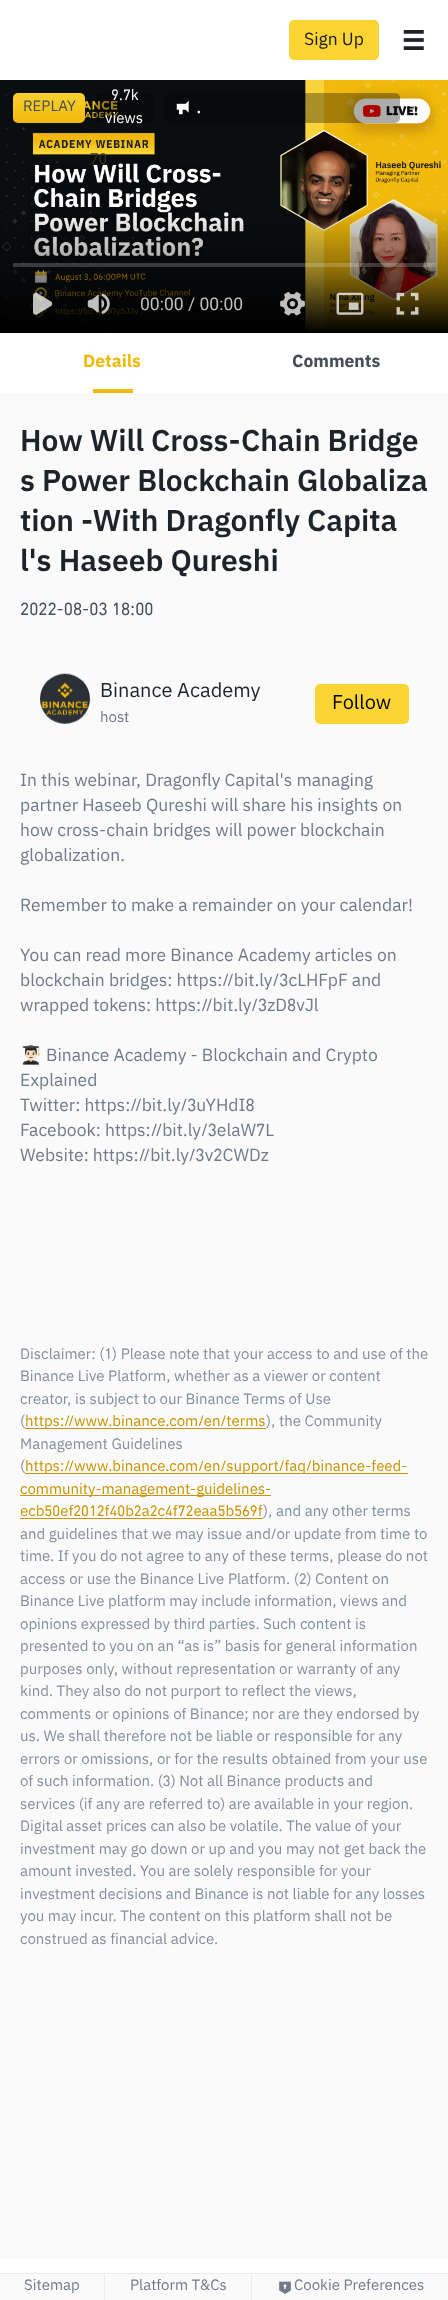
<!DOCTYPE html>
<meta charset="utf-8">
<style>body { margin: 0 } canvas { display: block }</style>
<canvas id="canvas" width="448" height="2300"></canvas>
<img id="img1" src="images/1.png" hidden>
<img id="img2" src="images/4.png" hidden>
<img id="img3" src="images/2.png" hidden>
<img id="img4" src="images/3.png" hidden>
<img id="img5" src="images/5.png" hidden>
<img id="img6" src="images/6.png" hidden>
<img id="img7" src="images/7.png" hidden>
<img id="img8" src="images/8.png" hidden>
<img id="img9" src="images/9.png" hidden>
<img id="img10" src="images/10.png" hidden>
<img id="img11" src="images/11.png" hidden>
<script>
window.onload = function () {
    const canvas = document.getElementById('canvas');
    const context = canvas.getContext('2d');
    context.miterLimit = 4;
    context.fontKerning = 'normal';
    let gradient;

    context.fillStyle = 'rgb(255, 255, 255)';
    context.fillRect(0, 0, 448, 2300);
    context.fillStyle = 'rgb(252, 213, 53)';
    context.beginPath();
    context.roundRect(289, 20, 90, 40, 5);
    context.fill();
    context.drawImage(document.getElementById('img1'), 403, 30, 21, 20);
    context.drawImage(document.getElementById('img2'), 0, 80, 448, 252);
    gradient = context.createLinearGradient(49, 93, 49, 123);
    gradient.addColorStop(0, 'rgb(248, 209, 47)');
    gradient.addColorStop(1, 'rgb(240, 185, 11)');
    context.fillStyle = gradient;
    context.beginPath();
    context.roundRect(13, 93, 72, 30, 5);
    context.fill();
    context.fillStyle = 'rgba(0, 0, 0, 0.32)';
    context.beginPath();
    context.roundRect(95, 93, 59, 30, 5);
    context.fill();
    context.drawImage(document.getElementById('img3'), 410, 104, 15, 3);
    context.beginPath();
    context.roundRect(164, 93, 236, 30, 5);
    context.fill();
    context.drawImage(document.getElementById('img4'), 176, 100, 13, 15);
    gradient = context.createLinearGradient(224, 207, 224, 333);
    gradient.addColorStop(0, 'rgba(0, 0, 0, 0)');
    gradient.addColorStop(0.5, 'rgba(0, 0, 0, 0.4)');
    gradient.addColorStop(1, 'rgb(0, 0, 0)');
    context.fillStyle = gradient;
    context.fillRect(0, 210, 448, 123);
    context.drawImage(document.getElementById('img5'), 87, 293, 23, 21);
    context.drawImage(document.getElementById('img6'), 33, 292, 20, 23);
    context.drawImage(document.getElementById('img7'), 280, 292, 25, 24);
    context.drawImage(document.getElementById('img8'), 336, 292, 28, 23);
    context.drawImage(document.getElementById('img9'), 396, 292, 23, 23);
    context.fillStyle = 'rgba(255, 255, 255, 0.2)';
    context.fillRect(13, 263, 423, 4);
    context.fillStyle = 'rgb(240, 185, 11)';
    context.fillRect(93, 389, 40, 4);
    context.fillStyle = 'rgb(250, 250, 250)';
    context.fillRect(0, 393, 448, 1866);
    context.drawImage(document.getElementById('img10'), 40, 673, 50, 51);
    context.fillStyle = 'rgb(252, 213, 53)';
    context.beginPath();
    context.roundRect(315, 684, 94, 40, 5);
    context.fill();
    context.fillStyle = 'rgb(201, 148, 0)';
    context.fillRect(20, 1495, 251, 1);
    context.fillRect(20, 1518, 243, 1);
    context.fillStyle = 'rgb(250, 250, 250)';
    context.fillRect(0, 2274, 448, 26);
    context.fillStyle = 'rgb(234, 236, 239)';
    context.fillRect(0, 2273, 448, 1);
    context.fillRect(104, 2274, 1, 26);
    context.fillRect(251, 2274, 1, 26);
    context.drawImage(document.getElementById('img11'), 279, 2281, 12, 13);
    context.font = '17.5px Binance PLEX';
    context.fillStyle = 'rgb(24, 26, 32)';
    context.fillText('Sign Up', 304, 45);
    context.font = '15px Binance PLEX';
    context.fillStyle = 'rgb(71, 77, 87)';
    context.fillText('REPLAY', 23, 111);
    context.fillStyle = 'rgb(255, 255, 255)';
    context.fillText('9.7k', 111, 100);
    context.fillText('views', 105, 123);
    context.font = '20px Binance PLEX';
    context.fillText('.', 196, 113);
    context.font = '15px Roboto';
    context.fillStyle = 'rgb(56, 51, 24)';
    context.fillText('70', 90, 164);
    context.font = '17.5px Roboto';
    context.fillStyle = 'rgb(192, 192, 192)';
    context.fillText('00:00 / 00:00', 140, 310);
    context.font = 'bold 17.5px Binance PLEX';
    context.fillStyle = 'rgb(240, 185, 11)';
    context.fillText('Details', 83, 367);
    context.fillStyle = 'rgb(71, 77, 87)';
    context.fillText('Comments', 292, 367);
    context.font = '600 30px Binance PLEX';
    context.fillStyle = 'rgb(30, 35, 41)';
    context.fillText('How Will Cross-Chain Bridge', 20, 451);
    context.fillText('s Power Blockchain Globaliza', 20, 491);
    context.fillText('tion -With Dragonfly Capita', 20, 531);
    context.fillText('l\'s Haseeb Qureshi', 20, 571);
    context.font = '17.5px Binance PLEX';
    context.fillStyle = 'rgb(71, 77, 87)';
    context.fillText('2022-08-03 18:00', 20, 615);
    context.font = '20px Binance PLEX';
    context.fillStyle = 'rgb(30, 35, 41)';
    context.fillText('Binance Academy', 100, 697);
    context.font = '15px Binance PLEX';
    context.fillStyle = 'rgb(112, 122, 138)';
    context.fillText('host', 100, 722);
    context.font = '20px Binance PLEX';
    context.fillStyle = 'rgb(0, 0, 0)';
    context.fillText('Follow', 332, 709);
    context.font = '17.5px Binance PLEX';
    context.fillStyle = 'rgb(112, 122, 138)';
    context.fillText('In this webinar, Dragonfly Capital\'s managing', 20, 786);
    context.fillText('partner Haseeb Qureshi will share his insights on', 20, 811);
    context.fillText('how cross-chain bridges will power blockchain', 20, 836);
    context.fillText('globalization.', 20, 861);
    context.fillText('Remember to make a remainder on your calendar!', 20, 911);
    context.fillText('You can read more Binance Academy articles on', 20, 961);
    context.fillText('blockchain bridges: https://bit.ly/3cLHFpF and', 20, 986);
    context.fillText('wrapped tokens: https://bit.ly/3zD8vJl', 20, 1011);
    context.font = '17.5px Noto Color Emoji';
    context.fillText('👨🏻‍🎓', 20, 1061);
    context.font = '17.5px Binance PLEX';
    context.fillText('Binance Academy - Blockchain and Crypto', 46, 1061);
    context.fillText('Explained', 20, 1086);
    context.fillText('Twitter: https://bit.ly/3uYHdI8', 20, 1111);
    context.fillText('Facebook: https://bit.ly/3elaW7L', 20, 1136);
    context.fillText('Website: https://bit.ly/3v2CWDz', 20, 1161);
    context.font = '15px Binance PLEX';
    context.fillStyle = 'rgb(132, 142, 156)';
    context.fillText('Disclaimer: (1) Please note that your access to and use of the', 20, 1359);
    context.fillText('Binance Live Platform, whether as a viewer or content', 20, 1381);
    context.fillText('creator, is subject to our Binance Terms of Use', 20, 1404);
    context.fillText('(', 20, 1426);
    context.fillStyle = 'rgb(201, 148, 0)';
    context.fillRect(25, 1428, 241, 1);
    context.fillText('https://www.binance.com/en/terms', 25, 1426);
    context.fillStyle = 'rgb(132, 142, 156)';
    context.fillText('), the Community', 266, 1426);
    context.fillText('Management Guidelines', 20, 1449);
    context.fillText('(', 20, 1471);
    context.fillStyle = 'rgb(201, 148, 0)';
    context.fillRect(25, 1473, 383, 1);
    context.fillText('https://www.binance.com/en/support/faq/binance-feed-', 25, 1471);
    context.fillText('community-management-guidelines-', 20, 1494);
    context.fillText('ecb50ef2012f40b2a2c4f72eaa5b569f', 20, 1516);
    context.fillStyle = 'rgb(132, 142, 156)';
    context.fillText('), and any other terms', 263, 1516);
    context.fillText('and guidelines that we may issue and/or update from time to', 20, 1539);
    context.fillText('time. If you do not agree to any of these terms, please do not', 20, 1561);
    context.fillText('access or use the Binance Live Platform. (2) Content on', 20, 1584);
    context.fillText('Binance Live platform may include information, views and', 20, 1606);
    context.fillText('opinions expressed by third parties. Such content is', 20, 1629);
    context.fillText('presented to you on an “as is” basis for general information', 20, 1651);
    context.fillText('purposes only, without representation or warranty of any', 20, 1674);
    context.fillText('kind. They also do not purport to reflect the views,', 20, 1696);
    context.fillText('comments or opinions of Binance; nor are they endorsed by', 20, 1719);
    context.fillText('us. We shall therefore not be liable or responsible for any', 20, 1741);
    context.fillText('errors or omissions, or for the results obtained from your use', 20, 1764);
    context.fillText('of such information. (3) Not all Binance products and', 20, 1786);
    context.fillText('services (if any are referred to) are available in your region.', 20, 1809);
    context.fillText('Digital asset prices can also be volatile. The value of your', 20, 1831);
    context.fillText('investment may go down or up and you may not get back the', 20, 1854);
    context.fillText('amount invested. You are solely responsible for your', 20, 1876);
    context.fillText('investment decisions and Binance is not liable for any losses', 20, 1899);
    context.fillText('you may incur. The content on this platform shall not be', 20, 1921);
    context.fillText('construed as financial advice.', 20, 1944);
    context.fillStyle = 'rgb(112, 122, 138)';
    context.fillText('Sitemap', 24, 2290);
    context.fillText('Platform T&Cs', 130, 2290);
    context.fillText('Cookie Preferences', 294, 2290);
};
</script>
